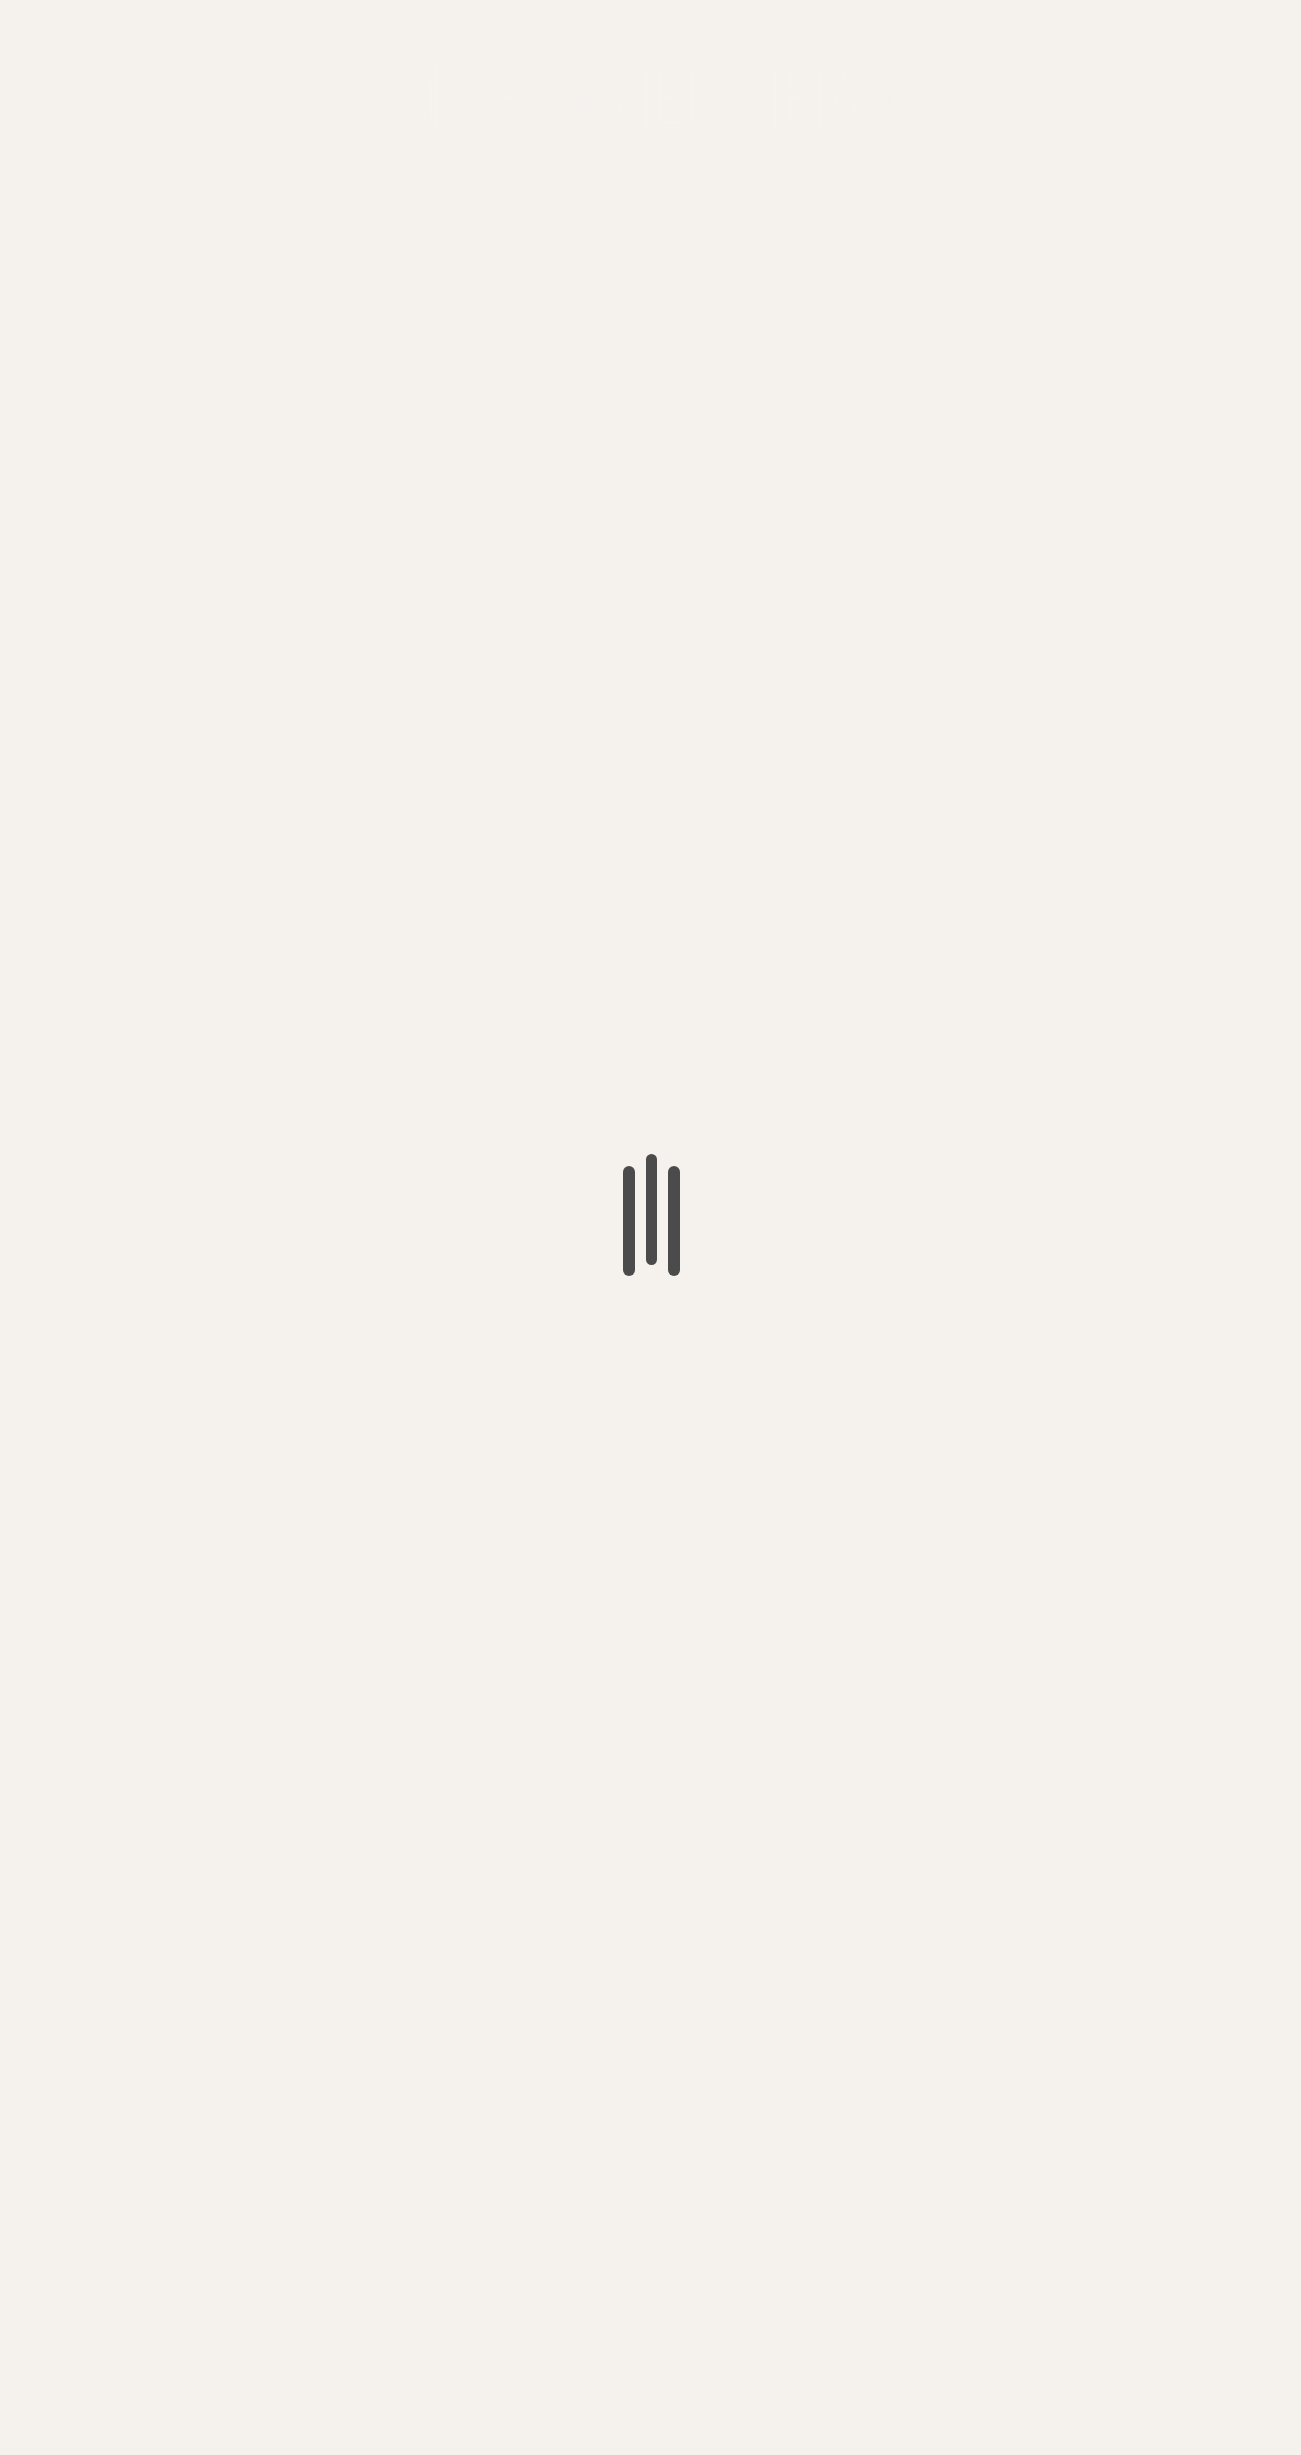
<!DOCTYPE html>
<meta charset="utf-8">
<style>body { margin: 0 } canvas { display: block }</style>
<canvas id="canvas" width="1301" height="2455"></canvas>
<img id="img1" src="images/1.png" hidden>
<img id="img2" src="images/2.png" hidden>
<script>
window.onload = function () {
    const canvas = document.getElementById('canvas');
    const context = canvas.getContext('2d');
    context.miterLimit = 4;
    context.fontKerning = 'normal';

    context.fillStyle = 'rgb(245, 242, 238)';
    context.fillRect(0, 0, 1301, 2455);
    context.drawImage(document.getElementById('img1'), 378, 45, 547, 99);
    context.drawImage(document.getElementById('img2'), 666, 1264, 603, 505);
    context.fillStyle = 'rgb(75, 75, 75)';
    context.beginPath();
    context.roundRect(646, 1154, 11, 111, 5.5);
    context.fill();
    context.beginPath();
    context.roundRect(623, 1166, 12, 110, 6);
    context.fill();
    context.beginPath();
    context.roundRect(668, 1166, 12, 110, 6);
    context.fill();
};
</script>
